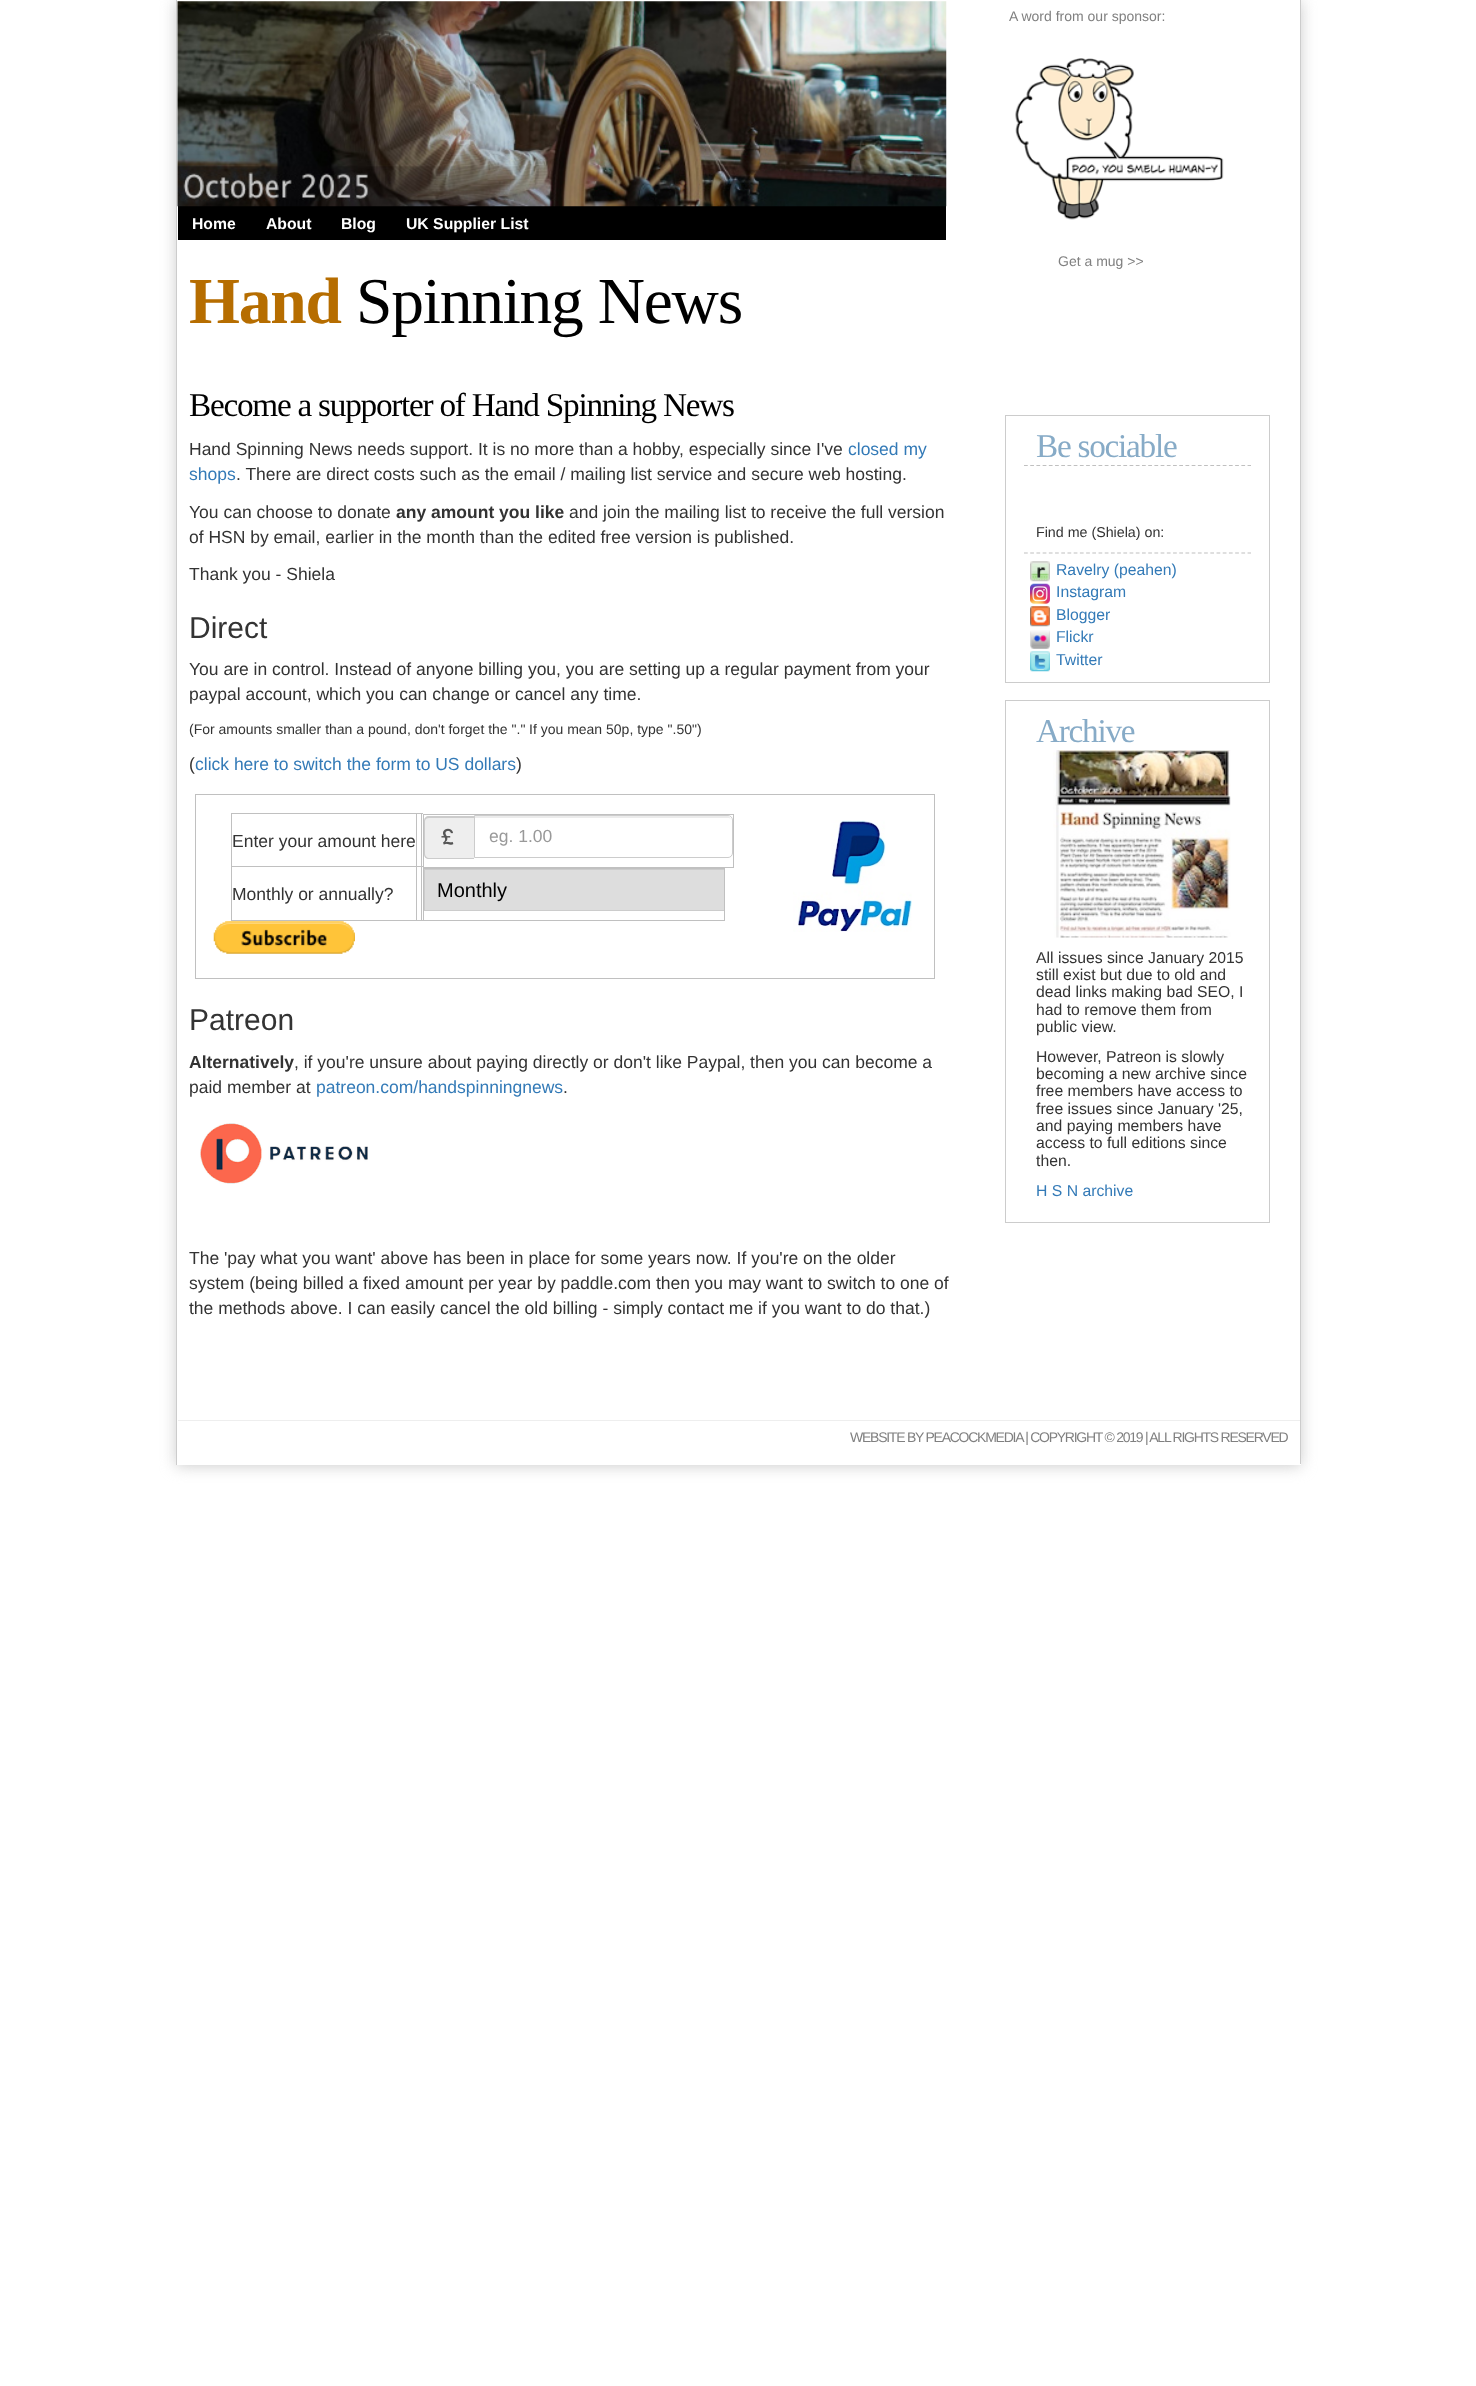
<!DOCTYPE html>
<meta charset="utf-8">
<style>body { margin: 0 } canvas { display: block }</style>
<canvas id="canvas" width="1476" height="2386"></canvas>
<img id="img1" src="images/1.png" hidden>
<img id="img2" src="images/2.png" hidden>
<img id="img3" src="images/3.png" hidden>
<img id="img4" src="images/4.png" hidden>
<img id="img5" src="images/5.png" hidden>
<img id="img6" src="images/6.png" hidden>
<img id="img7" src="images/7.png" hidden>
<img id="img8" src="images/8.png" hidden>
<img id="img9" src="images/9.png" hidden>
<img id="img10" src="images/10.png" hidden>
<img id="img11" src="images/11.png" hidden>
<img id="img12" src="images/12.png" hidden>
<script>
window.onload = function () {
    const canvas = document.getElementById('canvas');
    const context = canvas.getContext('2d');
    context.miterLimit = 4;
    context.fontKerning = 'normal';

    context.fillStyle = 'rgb(255, 255, 255)';
    context.fillRect(0, 0, 1476, 2386);
    context.fillStyle = 'rgb(204, 204, 204)';
    context.filter = 'blur(7.5px)';
    context.beginPath();
    context.rect(176, 1, 1125, 1465);
    context.fill();
    context.filter = 'none';
    context.fillStyle = 'rgb(255, 255, 255)';
    context.fillRect(177, 0, 1123, 1464);
    context.fillStyle = 'rgb(204, 204, 204)';
    context.fillRect(1300, 0, 1, 1465);
    context.fillStyle = 'rgb(255, 255, 255)';
    context.fillRect(176, 1464, 1125, 1);
    context.fillStyle = 'rgb(204, 204, 204)';
    context.fillRect(176, 0, 1, 1465);
    context.fillStyle = 'rgb(0, 0, 0)';
    context.fillRect(178, 206, 768, 34);
    context.drawImage(document.getElementById('img1'), 177, 1, 770, 206);
    context.strokeStyle = 'rgb(192, 192, 192)';
    context.strokeRect(195.5, 794.5, 739, 184);
    context.fillStyle = 'rgb(192, 192, 192)';
    context.fillRect(416, 813, 7, 1);
    context.fillRect(416, 866, 7, 1);
    context.fillRect(421, 866, 1, 55);
    context.fillRect(416, 920, 7, 1);
    context.fillRect(416, 866, 1, 55);
    context.fillRect(231, 866, 187, 1);
    context.fillRect(416, 813, 1, 55);
    context.fillRect(231, 813, 187, 1);
    context.fillRect(231, 920, 187, 1);
    context.fillRect(231, 866, 1, 55);
    context.fillRect(231, 813, 1, 55);
    context.fillRect(421, 813, 1, 55);
    context.strokeRect(423.5, 814.5, 310, 53);
    context.fillStyle = 'rgb(238, 238, 238)';
    context.beginPath();
    context.roundRect(424, 816, 50, 43, [5, 0, 0, 5]);
    context.fill();
    context.fillStyle = 'rgb(204, 204, 204)';
    context.beginPath();
    context.moveTo(429, 816);
    context.lineTo(474, 816);
    context.lineTo(474, 859);
    context.lineTo(429, 859);
    context.bezierCurveTo(426, 859, 424, 857, 424, 854);
    context.lineTo(424, 821);
    context.bezierCurveTo(424, 818, 426, 816, 429, 816);
    context.closePath();
    context.moveTo(429, 818);
    context.lineTo(474, 818);
    context.lineTo(474, 858);
    context.lineTo(429, 858);
    context.bezierCurveTo(427, 858, 425, 856, 425, 854);
    context.lineTo(425, 821);
    context.bezierCurveTo(425, 819, 427, 818, 429, 818);
    context.closePath();
    context.fill('evenodd');
    context.drawImage(document.getElementById('img2'), 441, 828, 13, 17);
    context.fillStyle = 'rgb(236, 236, 236)';
    context.beginPath();
    context.moveTo(475, 818);
    context.lineTo(729, 818);
    context.lineTo(731, 819);
    context.lineTo(731, 821);
    context.lineTo(731, 820);
    context.bezierCurveTo(731, 818, 729, 816, 727, 816);
    context.lineTo(475, 816);
    context.closePath();
    context.fill();
    context.beginPath();
    context.roundRect(474.5, 815.5, 258, 42, [0, 4.5, 4.5, 0]);
    context.strokeStyle = 'rgb(204, 204, 204)';
    context.stroke();
    context.strokeStyle = 'rgb(192, 192, 192)';
    context.strokeRect(423.5, 868.5, 301, 52);
    context.fillStyle = 'rgb(221, 221, 221)';
    context.fillRect(425, 870, 299, 40);
    context.save();
    context.beginPath();
    context.rect(424, 869, 300, 42);
    context.clip();
    context.strokeStyle = 'rgb(204, 204, 204)';
    context.strokeRect(424.5, 869.5, 334, 41);
    context.restore();
    context.drawImage(document.getElementById('img3'), 793, 820, 119, 112);
    context.drawImage(document.getElementById('img4'), 213, 921, 142, 33);
    context.drawImage(document.getElementById('img5'), 200, 1123, 168, 61);
    context.drawImage(document.getElementById('img6'), 1015, 58, 209, 162);
    context.strokeStyle = 'rgb(204, 204, 204)';
    context.strokeRect(1005.5, 415.5, 264, 267);
    context.beginPath();
    context.moveTo(1024, 465.5);
    context.lineTo(1251, 465.5);
    context.strokeStyle = 'rgb(192, 192, 192)';
    context.lineWidth = 1.2;
    context.setLineDash([3.75, 2.46]);
    context.stroke();
    context.beginPath();
    context.moveTo(1024, 553);
    context.lineTo(1251, 553);
    context.stroke();
    context.drawImage(document.getElementById('img7'), 1030, 561, 20, 21);
    context.drawImage(document.getElementById('img8'), 1030, 583, 20, 21);
    context.drawImage(document.getElementById('img9'), 1030, 606, 20, 21);
    context.drawImage(document.getElementById('img10'), 1030, 630, 20, 19);
    context.drawImage(document.getElementById('img11'), 1030, 651, 20, 21);
    context.strokeStyle = 'rgb(204, 204, 204)';
    context.lineWidth = 1;
    context.setLineDash([]);
    context.strokeRect(1005.5, 700.5, 264, 522);
    context.drawImage(document.getElementById('img12'), 1053, 750, 178, 188);
    context.fillStyle = 'rgb(238, 238, 238)';
    context.fillRect(178, 1420, 1122, 1);
    context.font = 'bold 15.75px Liberation Sans';
    context.fillStyle = 'rgb(255, 255, 255)';
    context.fillText('Home', 192, 229);
    context.fillText('About', 266, 229);
    context.fillText('Blog', 341, 229);
    context.fillText('UK Supplier List', 406, 229);
    context.letterSpacing = '-1.25px';
    context.font = 'bold 65.5px Liberation Serif';
    context.fillStyle = 'rgb(182, 109, 0)';
    context.fillText('Hand', 189, 323);
    context.font = '65.5px Liberation Serif';
    context.fillStyle = 'rgb(0, 0, 0)';
    context.fillText('Spinning News', 356, 323);
    context.font = '33.25px Liberation Serif';
    context.fillText('Become a supporter of Hand Spinning News', 189, 416);
    context.letterSpacing = '0px';
    context.font = '17.5px Liberation Sans';
    context.fillStyle = 'rgb(51, 51, 51)';
    context.fillText('Hand Spinning News needs support. It is no more than a hobby, especially since I\'ve', 189, 455);
    context.fillStyle = 'rgb(51, 122, 183)';
    context.fillText('closed my', 848, 455);
    context.fillText('shops', 189, 480);
    context.fillStyle = 'rgb(51, 51, 51)';
    context.fillText('. There are direct costs such as the email / mailing list service and secure web hosting.', 236, 480);
    context.fillText('You can choose to donate', 189, 518);
    context.font = 'bold 17.5px Liberation Sans';
    context.fillText('any amount you like', 396, 518);
    context.font = '17.5px Liberation Sans';
    context.fillText('and join the mailing list to receive the full version', 569, 518);
    context.fillText('of HSN by email, earlier in the month than the edited free version is published.', 189, 543);
    context.fillText('Thank you - Shiela', 189, 580);
    context.font = '30px Liberation Sans';
    context.fillText('Direct', 189, 638);
    context.font = '17.5px Liberation Sans';
    context.fillText('You are in control. Instead of anyone billing you, you are setting up a regular payment from your', 189, 675);
    context.fillText('paypal account, which you can change or cancel any time.', 189, 700);
    context.font = '14px Liberation Sans';
    context.fillText('(For amounts smaller than a pound, don\'t forget the "."', 189, 734);
    context.fillText('If you mean 50p, type ".50")', 529, 734);
    context.font = '17.5px Liberation Sans';
    context.fillText('(', 189, 770);
    context.fillStyle = 'rgb(51, 122, 183)';
    context.fillText('click here to switch the form to US dollars', 195, 770);
    context.fillStyle = 'rgb(51, 51, 51)';
    context.fillText(')', 516, 770);
    context.fillText('Enter your amount here', 232, 847);
    context.fillStyle = 'rgb(153, 153, 153)';
    context.fillText('eg. 1.00', 489, 842);
    context.fillStyle = 'rgb(51, 51, 51)';
    context.fillText('Monthly or annually?', 232, 900);
    context.font = '20px Liberation Sans';
    context.fillStyle = 'rgb(0, 0, 0)';
    context.fillText('Monthly', 437, 897);
    context.font = '30px Liberation Sans';
    context.fillStyle = 'rgb(51, 51, 51)';
    context.fillText('Patreon', 189, 1030);
    context.font = 'bold 17.5px Liberation Sans';
    context.fillText('Alternatively', 189, 1068);
    context.font = '17.5px Liberation Sans';
    context.fillText(', if you\'re unsure about paying directly or don\'t like Paypal, then you can become a', 294, 1068);
    context.fillText('paid member at', 189, 1093);
    context.fillStyle = 'rgb(51, 122, 183)';
    context.fillText('patreon.com/handspinningnews', 316, 1093);
    context.fillStyle = 'rgb(51, 51, 51)';
    context.fillText('.', 563, 1093);
    context.fillText('The \'pay what you want\' above has been in place for some years now. If you\'re on the older', 189, 1264);
    context.fillText('system (being billed a fixed amount per year by paddle.com then you may want to switch to one of', 189, 1289);
    context.fillText('the methods above. I can easily cancel the old billing - simply contact me if you want to do that.)', 189, 1314);
    context.font = '14px Liberation Sans';
    context.fillStyle = 'rgb(128, 128, 128)';
    context.fillText('A word from our sponsor:', 1009, 21);
    context.fillText('Get a mug >>', 1058, 266);
    context.letterSpacing = '-1.25px';
    context.font = '33.25px Liberation Serif';
    context.fillStyle = 'rgb(135, 171, 199)';
    context.fillText('Be sociable', 1036, 457);
    context.letterSpacing = '0px';
    context.font = '14.25px Liberation Sans';
    context.fillStyle = 'rgb(51, 51, 51)';
    context.fillText('Find me (Shiela) on:', 1036, 537);
    context.font = '15.75px Liberation Sans';
    context.fillStyle = 'rgb(51, 122, 183)';
    context.fillText('Ravelry (peahen)', 1056, 575);
    context.fillText('Instagram', 1056, 597);
    context.fillText('Blogger', 1056, 620);
    context.fillText('Flickr', 1056, 642);
    context.fillText('Twitter', 1056, 665);
    context.letterSpacing = '-1.25px';
    context.font = '33.25px Liberation Serif';
    context.fillStyle = 'rgb(135, 171, 199)';
    context.fillText('Archive', 1036, 742);
    context.letterSpacing = '0px';
    context.font = '15.75px Liberation Sans';
    context.fillStyle = 'rgb(51, 51, 51)';
    context.fillText('All issues since January 2015', 1036, 963);
    context.fillText('still exist but due to old and', 1036, 980);
    context.fillText('dead links making bad SEO, I', 1036, 997);
    context.fillText('had to remove them from', 1036, 1015);
    context.fillText('public view.', 1036, 1032);
    context.fillText('However, Patreon is slowly', 1036, 1062);
    context.fillText('becoming a new archive since', 1036, 1079);
    context.fillText('free members have access to', 1036, 1096);
    context.fillText('free issues since January \'25,', 1036, 1114);
    context.fillText('and paying members have', 1036, 1131);
    context.fillText('access to full editions since', 1036, 1148);
    context.fillText('then.', 1036, 1166);
    context.fillStyle = 'rgb(51, 122, 183)';
    context.fillText('H S N archive', 1036, 1196);
    context.letterSpacing = '-1.25px';
    context.font = '14px Liberation Sans';
    context.fillStyle = 'rgb(128, 128, 128)';
    context.fillText('WEBSITE BY PEACOCKMEDIA | COPYRIGHT © 2019 | ALL RIGHTS RESERVED', 850, 1442);
};
</script>
